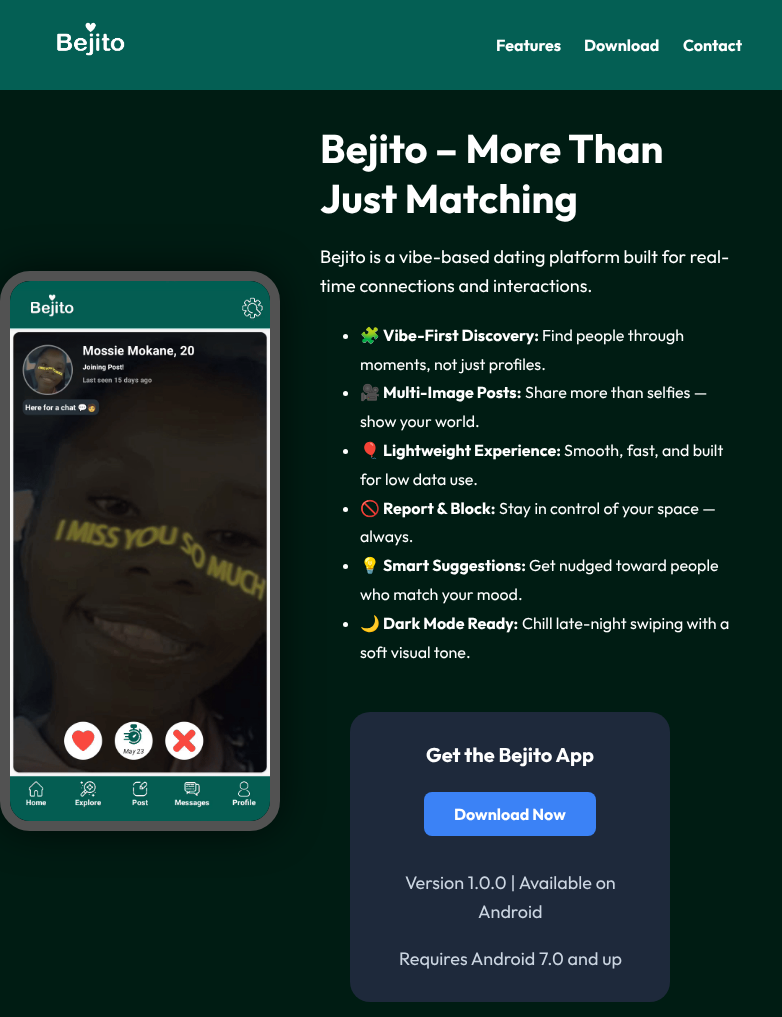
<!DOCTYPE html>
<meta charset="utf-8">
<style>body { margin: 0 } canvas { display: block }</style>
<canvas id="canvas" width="782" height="1017"></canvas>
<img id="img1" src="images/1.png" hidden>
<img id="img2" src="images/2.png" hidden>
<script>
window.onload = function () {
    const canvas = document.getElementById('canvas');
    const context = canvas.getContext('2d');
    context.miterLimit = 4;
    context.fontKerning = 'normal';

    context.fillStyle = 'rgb(0, 28, 19)';
    context.fillRect(0, 0, 782, 1017);
    context.fillStyle = 'rgb(4, 95, 84)';
    context.fillRect(0, 0, 782, 90);
    context.drawImage(document.getElementById('img1'), 57, 22, 68, 34);
    context.fillStyle = 'rgba(0, 0, 0, 0.6)';
    context.filter = 'blur(20px)';
    context.beginPath();
    context.roundRect(0, 271, 280, 560, 30);
    context.fill();
    context.filter = 'none';
    context.fillStyle = 'rgb(0, 0, 0)';
    context.beginPath();
    context.roundRect(5, 276, 270, 550, 25);
    context.fill();
    context.strokeStyle = 'rgb(82, 82, 82)';
    context.lineWidth = 10;
    context.stroke();
    context.drawImage(document.getElementById('img2'), 10, 281, 260, 540);
    context.fillStyle = 'rgb(255, 255, 255)';
    context.beginPath();
    context.arc(345.5, 336.5, 2.5, 0, 2 * Math.PI);
    context.fill();
    context.beginPath();
    context.arc(345.5, 393.5, 2.5, 0, 2 * Math.PI);
    context.fill();
    context.beginPath();
    context.arc(345.5, 451.5, 2.5, 0, 2 * Math.PI);
    context.fill();
    context.beginPath();
    context.arc(345.5, 509.5, 2.5, 0, 2 * Math.PI);
    context.fill();
    context.beginPath();
    context.arc(345.5, 566.5, 2.5, 0, 2 * Math.PI);
    context.fill();
    context.beginPath();
    context.arc(345.5, 624.5, 2.5, 0, 2 * Math.PI);
    context.fill();
    context.fillStyle = 'rgb(30, 41, 59)';
    context.beginPath();
    context.roundRect(350, 712, 320, 290, 20);
    context.fill();
    context.fillStyle = 'rgb(59, 130, 246)';
    context.beginPath();
    context.roundRect(424, 792, 172, 44, 8);
    context.fill();
    context.font = 'bold 16px Outfit';
    context.fillStyle = 'rgb(255, 255, 255)';
    context.fillText('Features', 496, 51);
    context.fillText('Download', 584, 51);
    context.fillText('Contact', 683, 51);
    context.font = 'bold 40px Outfit';
    context.fillText('Bejito – More Than', 320, 163);
    context.fillText('Just Matching', 320, 213);
    context.font = '18px Outfit';
    context.fillText('Bejito is a vibe-based dating platform built for real-', 320, 263);
    context.fillText('time connections and interactions.', 320, 292);
    context.font = '16px Noto Color Emoji';
    context.fillText('🧩', 360, 341);
    context.font = 'bold 16px Outfit';
    context.fillText('Vibe-First Discovery:', 383, 341);
    context.font = '16px Outfit';
    context.fillText('Find people through', 542, 341);
    context.fillText('moments, not just profiles.', 360, 370);
    context.font = '16px Noto Color Emoji';
    context.fillText('🎥', 360, 398);
    context.font = 'bold 16px Outfit';
    context.fillText('Multi-Image Posts:', 383, 398);
    context.font = '16px Outfit';
    context.fillText('Share more than selfies —', 525, 398);
    context.fillText('show your world.', 360, 427);
    context.font = '16px Noto Color Emoji';
    context.fillText('🎈', 360, 456);
    context.font = 'bold 16px Outfit';
    context.fillText('Lightweight Experience:', 383, 456);
    context.font = '16px Outfit';
    context.fillText('Smooth, fast, and built', 564, 456);
    context.fillText('for low data use.', 360, 485);
    context.font = '16px Noto Color Emoji';
    context.fillText('🚫', 360, 514);
    context.font = 'bold 16px Outfit';
    context.fillText('Report & Block:', 383, 514);
    context.font = '16px Outfit';
    context.fillText('Stay in control of your space —', 499, 514);
    context.fillText('always.', 360, 542);
    context.font = '16px Noto Color Emoji';
    context.fillText('💡', 360, 571);
    context.font = 'bold 16px Outfit';
    context.fillText('Smart Suggestions:', 383, 571);
    context.font = '16px Outfit';
    context.fillText('Get nudged toward people', 529, 571);
    context.fillText('who match your mood.', 360, 600);
    context.font = '16px Noto Color Emoji';
    context.fillText('🌙', 360, 629);
    context.font = 'bold 16px Outfit';
    context.fillText('Dark Mode Ready:', 383, 629);
    context.font = '16px Outfit';
    context.fillText('Chill late-night swiping with a', 522, 629);
    context.fillText('soft visual tone.', 360, 658);
    context.font = 'bold 20px Outfit';
    context.fillText('Get the Bejito App', 426, 762);
    context.font = 'bold 16px Outfit';
    context.fillText('Download Now', 454, 820);
    context.font = '18px Outfit';
    context.fillStyle = 'rgb(203, 213, 225)';
    context.fillText('Version 1.0.0 | Available on', 405, 889);
    context.fillText('Android', 478, 918);
    context.fillText('Requires Android 7.0 and up', 399, 965);
};
</script>
